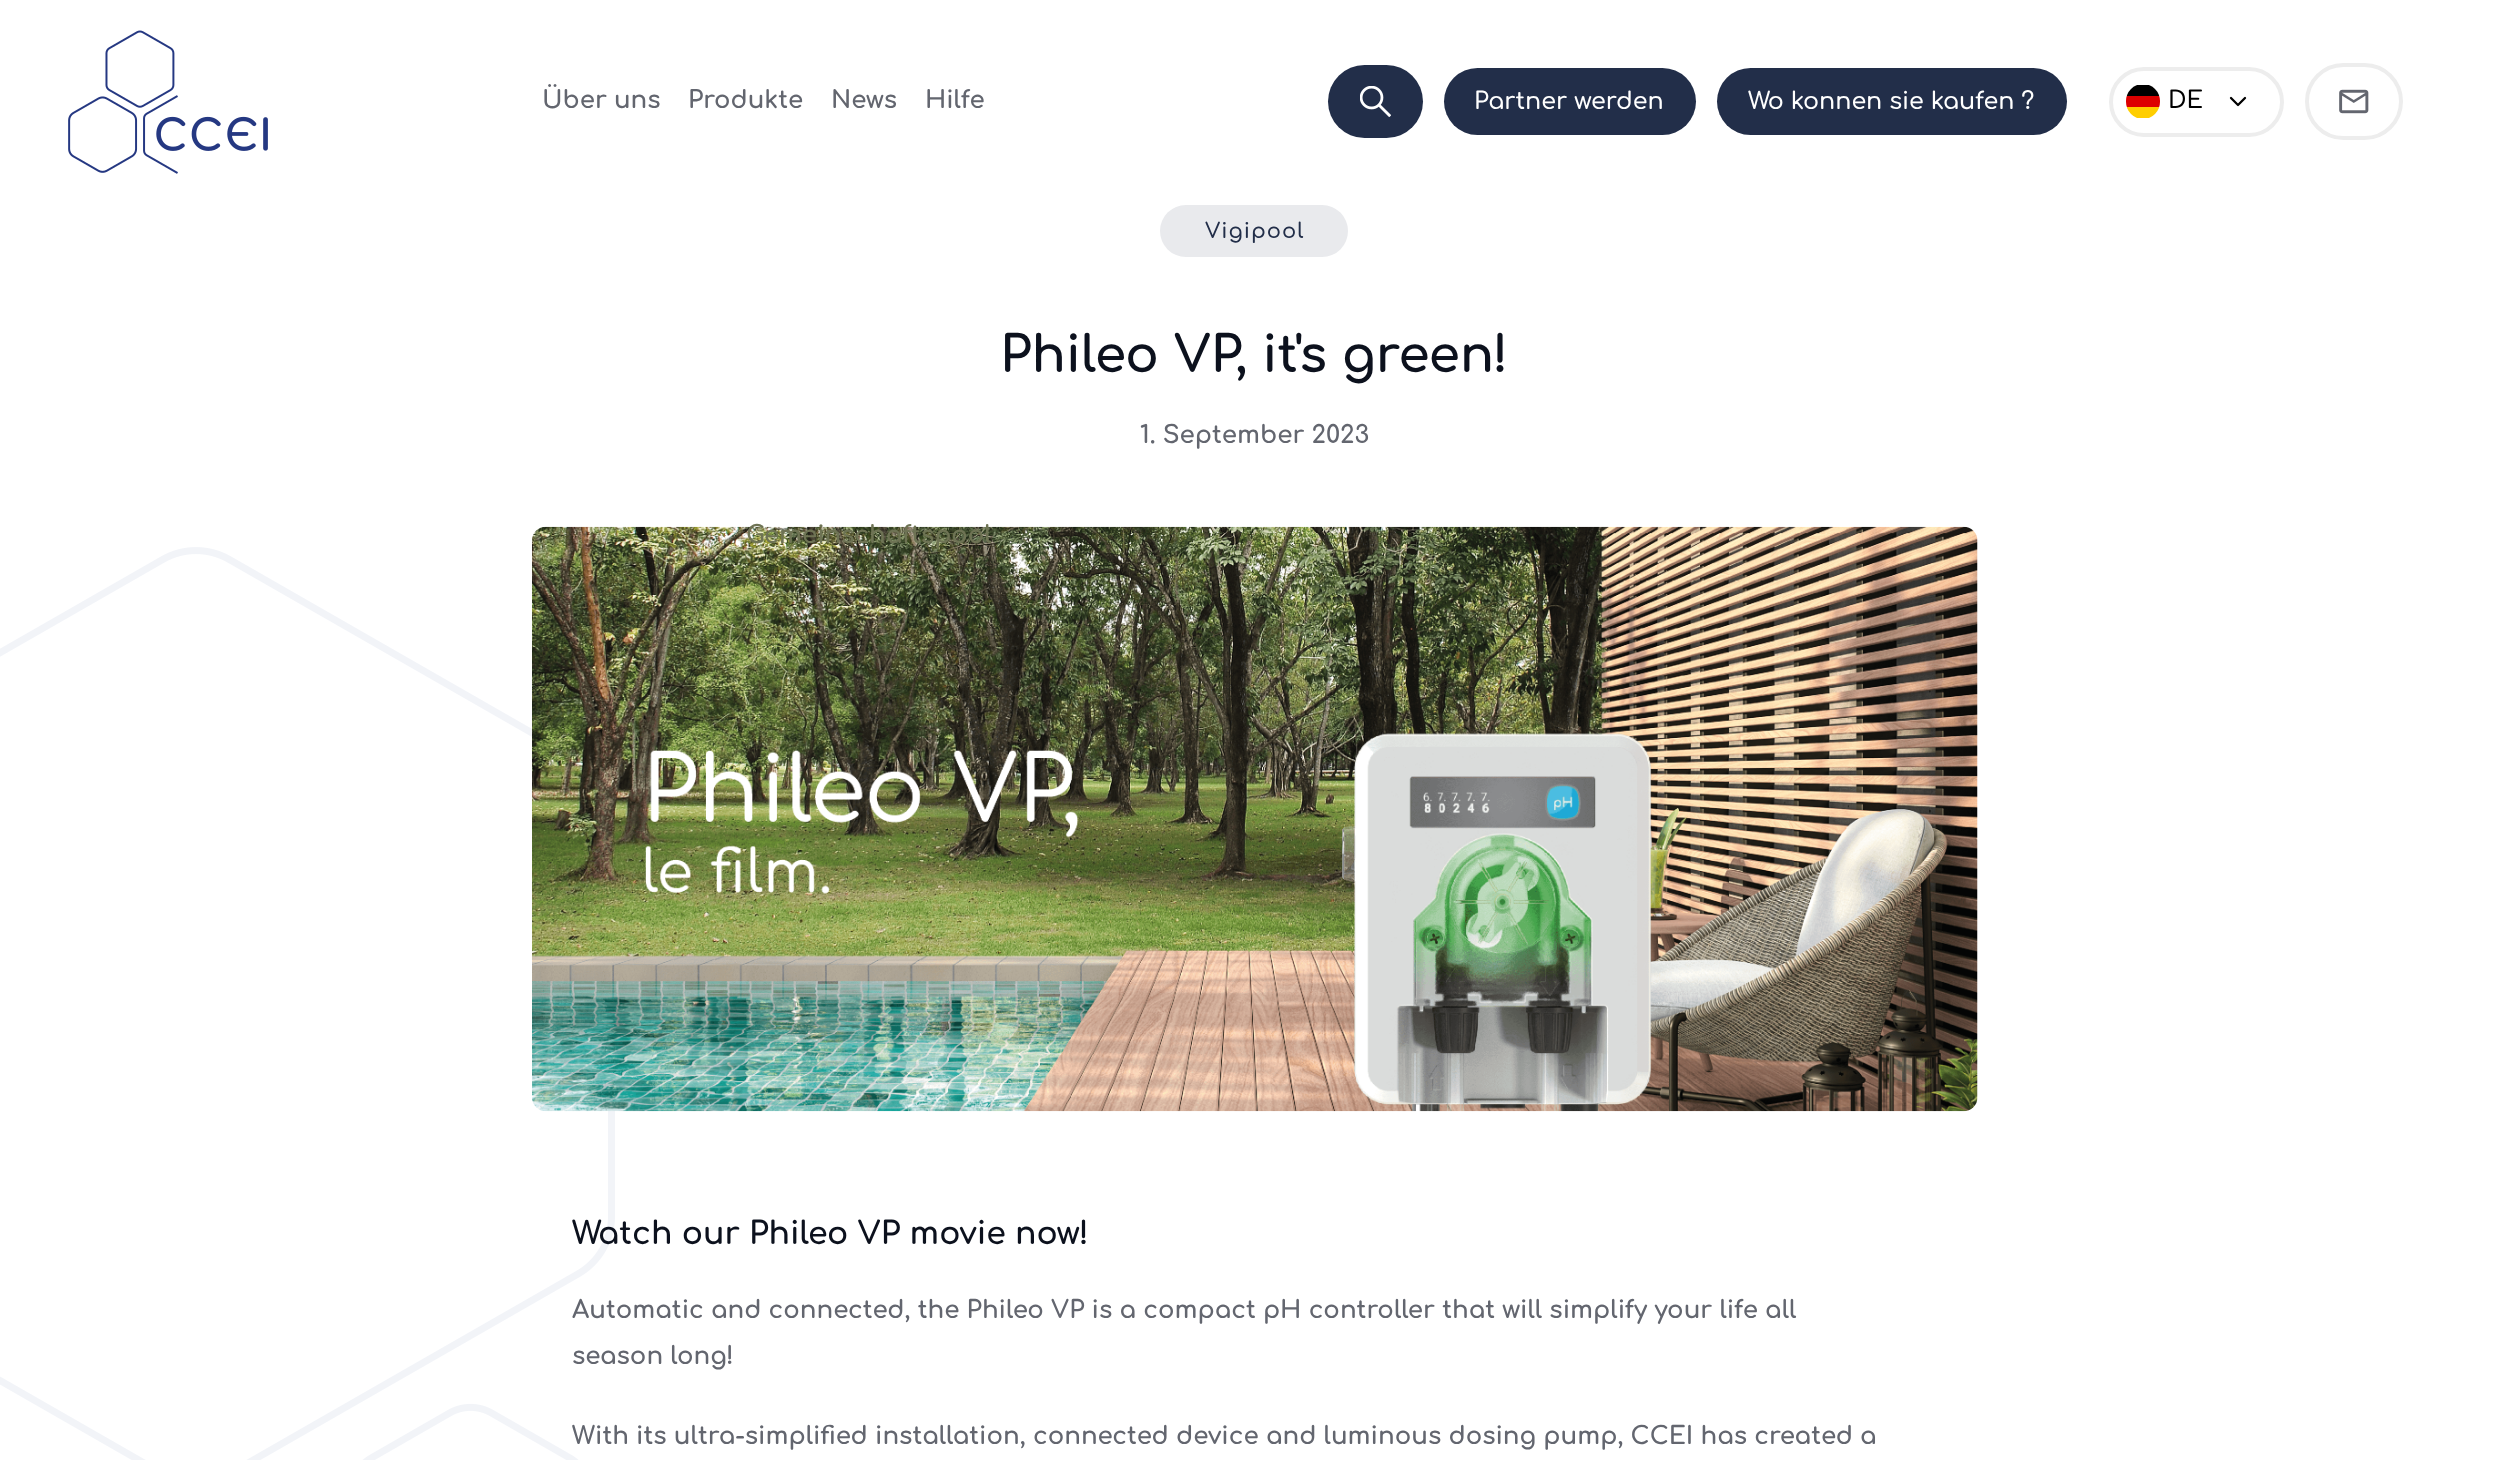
<!DOCTYPE html>
<meta charset="utf-8">
<style>body { margin: 0 } canvas { display: block }</style>
<canvas id="canvas" width="2509" height="1460"></canvas>
<img id="img1" src="images/1.png" hidden>
<img id="img2" src="images/2.png" hidden>
<img id="img3" src="images/3.png" hidden>
<img id="img4" src="images/4.png" hidden>
<img id="img5" src="images/5.png" hidden>
<script>
window.onload = function () {
    const canvas = document.getElementById('canvas');
    const context = canvas.getContext('2d');
    context.miterLimit = 4;
    context.fontKerning = 'normal';

    context.fillStyle = 'rgb(255, 255, 255)';
    context.fillRect(0, 0, 2509, 1460);
    context.drawImage(document.getElementById('img1'), 68, 30, 200, 144);
    context.fillStyle = 'rgb(34, 46, 73)';
    context.beginPath();
    context.roundRect(1328, 65, 95, 73, 36.5);
    context.fill();
    context.drawImage(document.getElementById('img2'), 1360, 86, 31, 31);
    context.beginPath();
    context.roundRect(1444, 68, 252, 67, 33.5);
    context.fill();
    context.beginPath();
    context.roundRect(1717, 68, 350, 67, 33.5);
    context.fill();
    context.beginPath();
    context.roundRect(2111, 69, 171, 66, 33);
    context.strokeStyle = 'rgb(237, 237, 237)';
    context.lineWidth = 4;
    context.stroke();
    context.save();
    context.beginPath();
    context.roundRect(2126, 84, 34, 35, 17);
    context.clip();
    context.fillStyle = 'rgb(255, 206, 0)';
    context.fillRect(2126, 107, 34, 11);
    context.fillStyle = 'rgb(0, 0, 0)';
    context.fillRect(2126, 85, 34, 11);
    context.fillStyle = 'rgb(221, 0, 0)';
    context.fillRect(2126, 96, 34, 11);
    context.restore();
    context.beginPath();
    context.moveTo(2231, 98);
    context.lineTo(2238, 105);
    context.lineTo(2245, 98);
    context.strokeStyle = 'rgb(0, 0, 0)';
    context.lineWidth = 2.3;
    context.lineCap = 'round';
    context.lineJoin = 'round';
    context.stroke();
    context.beginPath();
    context.roundRect(2307, 65, 94, 73, 36.5);
    context.strokeStyle = 'rgb(237, 237, 237)';
    context.lineWidth = 4;
    context.lineJoin = 'miter';
    context.stroke();
    context.drawImage(document.getElementById('img3'), 2339, 89, 30, 25);
    context.fillStyle = 'rgb(233, 234, 237)';
    context.beginPath();
    context.roundRect(1160, 205, 188, 52, 26);
    context.fill();
    context.drawImage(document.getElementById('img4'), 0, 547, 615, 913);
    context.drawImage(document.getElementById('img5'), 532, 526, 1446, 586);
    context.font = 'bold 24.4px Comfortaa';
    context.fillStyle = 'rgb(99, 102, 111)';
    context.fillText('Über uns', 542, 108);
    context.fillText('Produkte', 688, 108);
    context.fillStyle = 'rgb(110, 115, 84)';
    context.fillText('Gemeinschaftspool', 746, 543);
    context.fillStyle = 'rgb(99, 102, 111)';
    context.fillText('News', 831, 108);
    context.fillText('Hilfe', 925, 108);
    context.font = '600 23.75px Comfortaa';
    context.fillStyle = 'rgb(255, 255, 255)';
    context.fillText('Partner werden', 1474, 109);
    context.fillText('Wo konnen sie kaufen ?', 1748, 109);
    context.fillStyle = 'rgb(0, 0, 0)';
    context.fillText('DE', 2168, 108);
    context.letterSpacing = '1px';
    context.font = '600 21px Comfortaa';
    context.fillStyle = 'rgb(34, 46, 73)';
    context.fillText('Vigipool', 1205, 238);
    context.letterSpacing = '0px';
    context.font = 'bold 50.4px Comfortaa';
    context.fillStyle = 'rgb(12, 17, 29)';
    context.fillText('Phileo VP, it\'s green!', 1000, 372);
    context.font = 'bold 24.5px Comfortaa';
    context.fillStyle = 'rgb(99, 102, 111)';
    context.fillText('1. September 2023', 1140, 443);
    context.font = 'bold 31.5px Comfortaa';
    context.fillStyle = 'rgb(12, 17, 29)';
    context.fillText('Watch our Phileo VP movie now!', 572, 1244);
    context.font = 'bold 24.5px Comfortaa';
    context.fillStyle = 'rgb(99, 102, 111)';
    context.fillText('Automatic and connected, the Phileo VP is a compact pH controller that will simplify your life all', 572, 1318);
    context.fillText('season long!', 572, 1364);
    context.fillText('With its ultra-simplified installation, connected device and luminous dosing pump, CCEI has created a', 572, 1444);
};
</script>
